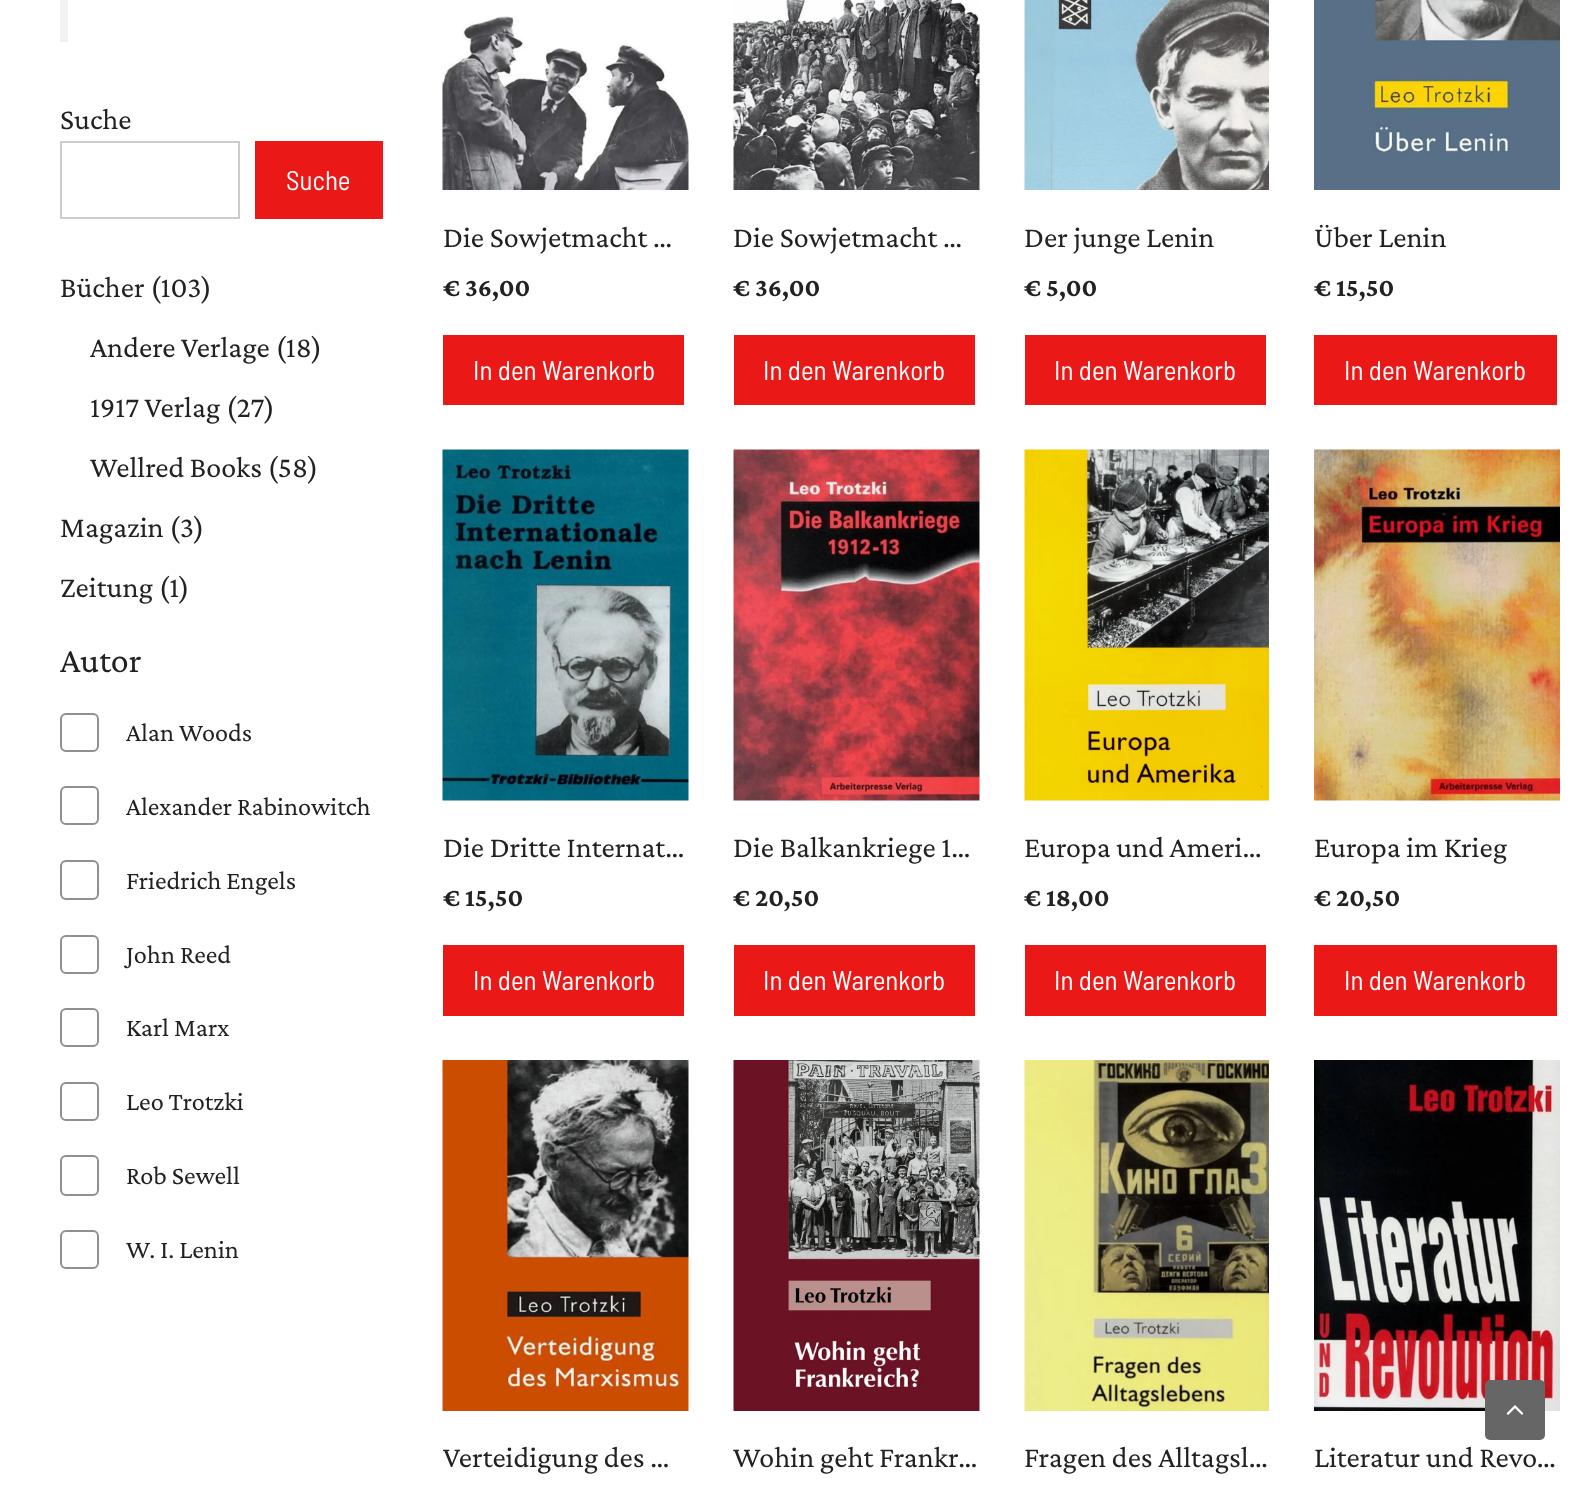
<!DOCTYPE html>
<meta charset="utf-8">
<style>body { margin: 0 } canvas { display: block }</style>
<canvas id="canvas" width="1590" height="1485"></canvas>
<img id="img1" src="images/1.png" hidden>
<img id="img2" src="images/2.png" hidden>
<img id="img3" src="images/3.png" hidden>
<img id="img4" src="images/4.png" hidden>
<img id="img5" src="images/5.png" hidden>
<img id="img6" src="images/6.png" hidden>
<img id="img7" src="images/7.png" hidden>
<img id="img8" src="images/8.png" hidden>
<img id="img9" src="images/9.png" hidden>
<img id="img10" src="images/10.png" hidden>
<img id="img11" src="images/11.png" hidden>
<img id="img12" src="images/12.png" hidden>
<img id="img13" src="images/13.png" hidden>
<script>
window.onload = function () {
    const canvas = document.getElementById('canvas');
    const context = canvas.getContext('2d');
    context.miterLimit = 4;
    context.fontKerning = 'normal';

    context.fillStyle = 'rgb(255, 255, 255)';
    context.fillRect(0, 0, 1590, 1485);
    context.fillStyle = 'rgb(242, 242, 242)';
    context.fillRect(60, 0, 8, 42);
    context.strokeStyle = 'rgb(204, 204, 204)';
    context.lineWidth = 2;
    context.strokeRect(61, 142, 178, 76);
    context.fillStyle = 'rgb(234, 25, 23)';
    context.fillRect(255, 141, 128, 78);
    context.beginPath();
    context.roundRect(61, 714, 37, 37, 5);
    context.strokeStyle = 'rgb(145, 144, 141)';
    context.stroke();
    context.beginPath();
    context.roundRect(61, 787, 37, 37, 5);
    context.stroke();
    context.beginPath();
    context.roundRect(61, 861, 37, 38, 5);
    context.stroke();
    context.beginPath();
    context.roundRect(61, 936, 37, 37, 5);
    context.stroke();
    context.beginPath();
    context.roundRect(61, 1009, 37, 37, 5);
    context.stroke();
    context.beginPath();
    context.roundRect(61, 1083, 37, 37, 5);
    context.stroke();
    context.beginPath();
    context.roundRect(61, 1156, 37, 39, 5);
    context.stroke();
    context.beginPath();
    context.roundRect(61, 1231, 37, 37, 5);
    context.stroke();
    context.drawImage(document.getElementById('img1'), 442, 16, 247, 174);
    context.fillRect(443, 335, 241, 70);
    context.drawImage(document.getElementById('img2'), 733, 0, 247, 190);
    context.fillRect(734, 335, 241, 70);
    context.drawImage(document.getElementById('img3'), 1024, 0, 245, 190);
    context.fillRect(1025, 335, 241, 70);
    context.drawImage(document.getElementById('img4'), 1314, 0, 246, 190);
    context.fillRect(1314, 335, 243, 70);
    context.drawImage(document.getElementById('img5'), 442, 449, 247, 352);
    context.fillRect(443, 945, 241, 71);
    context.drawImage(document.getElementById('img6'), 733, 449, 247, 352);
    context.fillRect(734, 945, 241, 71);
    context.drawImage(document.getElementById('img7'), 1024, 449, 245, 352);
    context.fillRect(1025, 945, 241, 71);
    context.drawImage(document.getElementById('img8'), 1314, 449, 246, 352);
    context.fillRect(1314, 945, 243, 71);
    context.drawImage(document.getElementById('img9'), 442, 1060, 247, 351);
    context.drawImage(document.getElementById('img10'), 733, 1060, 247, 351);
    context.drawImage(document.getElementById('img11'), 1024, 1060, 245, 351);
    context.drawImage(document.getElementById('img12'), 1314, 1060, 246, 351);
    context.fillStyle = 'rgb(102, 102, 102)';
    context.beginPath();
    context.roundRect(1485, 1380, 60, 60, 5);
    context.fill();
    context.drawImage(document.getElementById('img13'), 1506, 1405, 18, 10);
    context.font = '30px Crimson Pro';
    context.fillStyle = 'rgb(34, 34, 34)';
    context.fillText('Suche', 60, 129);
    context.font = '27px Barlow Semi Condensed';
    context.fillStyle = 'rgb(255, 255, 255)';
    context.fillText('Suche', 286, 190);
    context.font = '30px Crimson Pro';
    context.fillStyle = 'rgb(34, 34, 34)';
    context.fillText('Bücher (103)', 60, 297);
    context.fillText('Andere Verlage (18)', 90, 357);
    context.fillText('1917 Verlag (27)', 90, 417);
    context.fillText('Wellred Books (58)', 90, 477);
    context.fillText('Magazin (3)', 60, 537);
    context.fillText('Zeitung (1)', 60, 597);
    context.font = '36px Crimson Pro';
    context.fillText('Autor', 60, 672);
    context.font = '26.25px Crimson Pro';
    context.fillText('Alan Woods', 126, 741);
    context.fillText('Alexander Rabinowitch', 126, 815);
    context.fillText('Friedrich Engels', 126, 889);
    context.fillText('John Reed', 126, 963);
    context.fillText('Karl Marx', 126, 1036);
    context.fillText('Leo Trotzki', 126, 1110);
    context.fillText('Rob Sewell', 126, 1184);
    context.fillText('W. I. Lenin', 126, 1258);
    context.font = '30px Crimson Pro';
    context.fillText('Die Sowjetmacht …', 443, 247);
    context.font = 'bold 26px Crimson Pro';
    context.fillText('€ 36,00', 443, 296);
    context.font = '27px Barlow Semi Condensed';
    context.fillStyle = 'rgb(255, 255, 255)';
    context.fillText('In den Warenkorb', 473, 380);
    context.font = '30px Crimson Pro';
    context.fillStyle = 'rgb(34, 34, 34)';
    context.fillText('Die Sowjetmacht …', 733, 247);
    context.font = 'bold 26px Crimson Pro';
    context.fillText('€ 36,00', 733, 296);
    context.font = '27px Barlow Semi Condensed';
    context.fillStyle = 'rgb(255, 255, 255)';
    context.fillText('In den Warenkorb', 763, 380);
    context.font = '30px Crimson Pro';
    context.fillStyle = 'rgb(34, 34, 34)';
    context.fillText('Der junge Lenin', 1024, 247);
    context.font = 'bold 26px Crimson Pro';
    context.fillText('€ 5,00', 1024, 296);
    context.font = '27px Barlow Semi Condensed';
    context.fillStyle = 'rgb(255, 255, 255)';
    context.fillText('In den Warenkorb', 1054, 380);
    context.font = '30px Crimson Pro';
    context.fillStyle = 'rgb(34, 34, 34)';
    context.fillText('Über Lenin', 1314, 247);
    context.font = 'bold 26px Crimson Pro';
    context.fillText('€ 15,50', 1314, 296);
    context.font = '27px Barlow Semi Condensed';
    context.fillStyle = 'rgb(255, 255, 255)';
    context.fillText('In den Warenkorb', 1344, 380);
    context.font = '30px Crimson Pro';
    context.fillStyle = 'rgb(34, 34, 34)';
    context.fillText('Die Dritte Internat…', 443, 857);
    context.font = 'bold 26px Crimson Pro';
    context.fillText('€ 15,50', 443, 906);
    context.font = '27px Barlow Semi Condensed';
    context.fillStyle = 'rgb(255, 255, 255)';
    context.fillText('In den Warenkorb', 473, 990);
    context.font = '30px Crimson Pro';
    context.fillStyle = 'rgb(34, 34, 34)';
    context.fillText('Die Balkankriege 1…', 733, 857);
    context.font = 'bold 26px Crimson Pro';
    context.fillText('€ 20,50', 733, 906);
    context.font = '27px Barlow Semi Condensed';
    context.fillStyle = 'rgb(255, 255, 255)';
    context.fillText('In den Warenkorb', 763, 990);
    context.font = '30px Crimson Pro';
    context.fillStyle = 'rgb(34, 34, 34)';
    context.fillText('Europa und Ameri…', 1024, 857);
    context.font = 'bold 26px Crimson Pro';
    context.fillText('€ 18,00', 1024, 906);
    context.font = '27px Barlow Semi Condensed';
    context.fillStyle = 'rgb(255, 255, 255)';
    context.fillText('In den Warenkorb', 1054, 990);
    context.font = '30px Crimson Pro';
    context.fillStyle = 'rgb(34, 34, 34)';
    context.fillText('Europa im Krieg', 1314, 857);
    context.font = 'bold 26px Crimson Pro';
    context.fillText('€ 20,50', 1314, 906);
    context.font = '27px Barlow Semi Condensed';
    context.fillStyle = 'rgb(255, 255, 255)';
    context.fillText('In den Warenkorb', 1344, 990);
    context.font = '30px Crimson Pro';
    context.fillStyle = 'rgb(34, 34, 34)';
    context.fillText('Verteidigung des …', 443, 1467);
    context.fillText('Wohin geht Frankr…', 733, 1467);
    context.fillText('Fragen des Alltagsl…', 1024, 1467);
    context.fillText('Literatur und Revo…', 1314, 1467);
};
</script>
